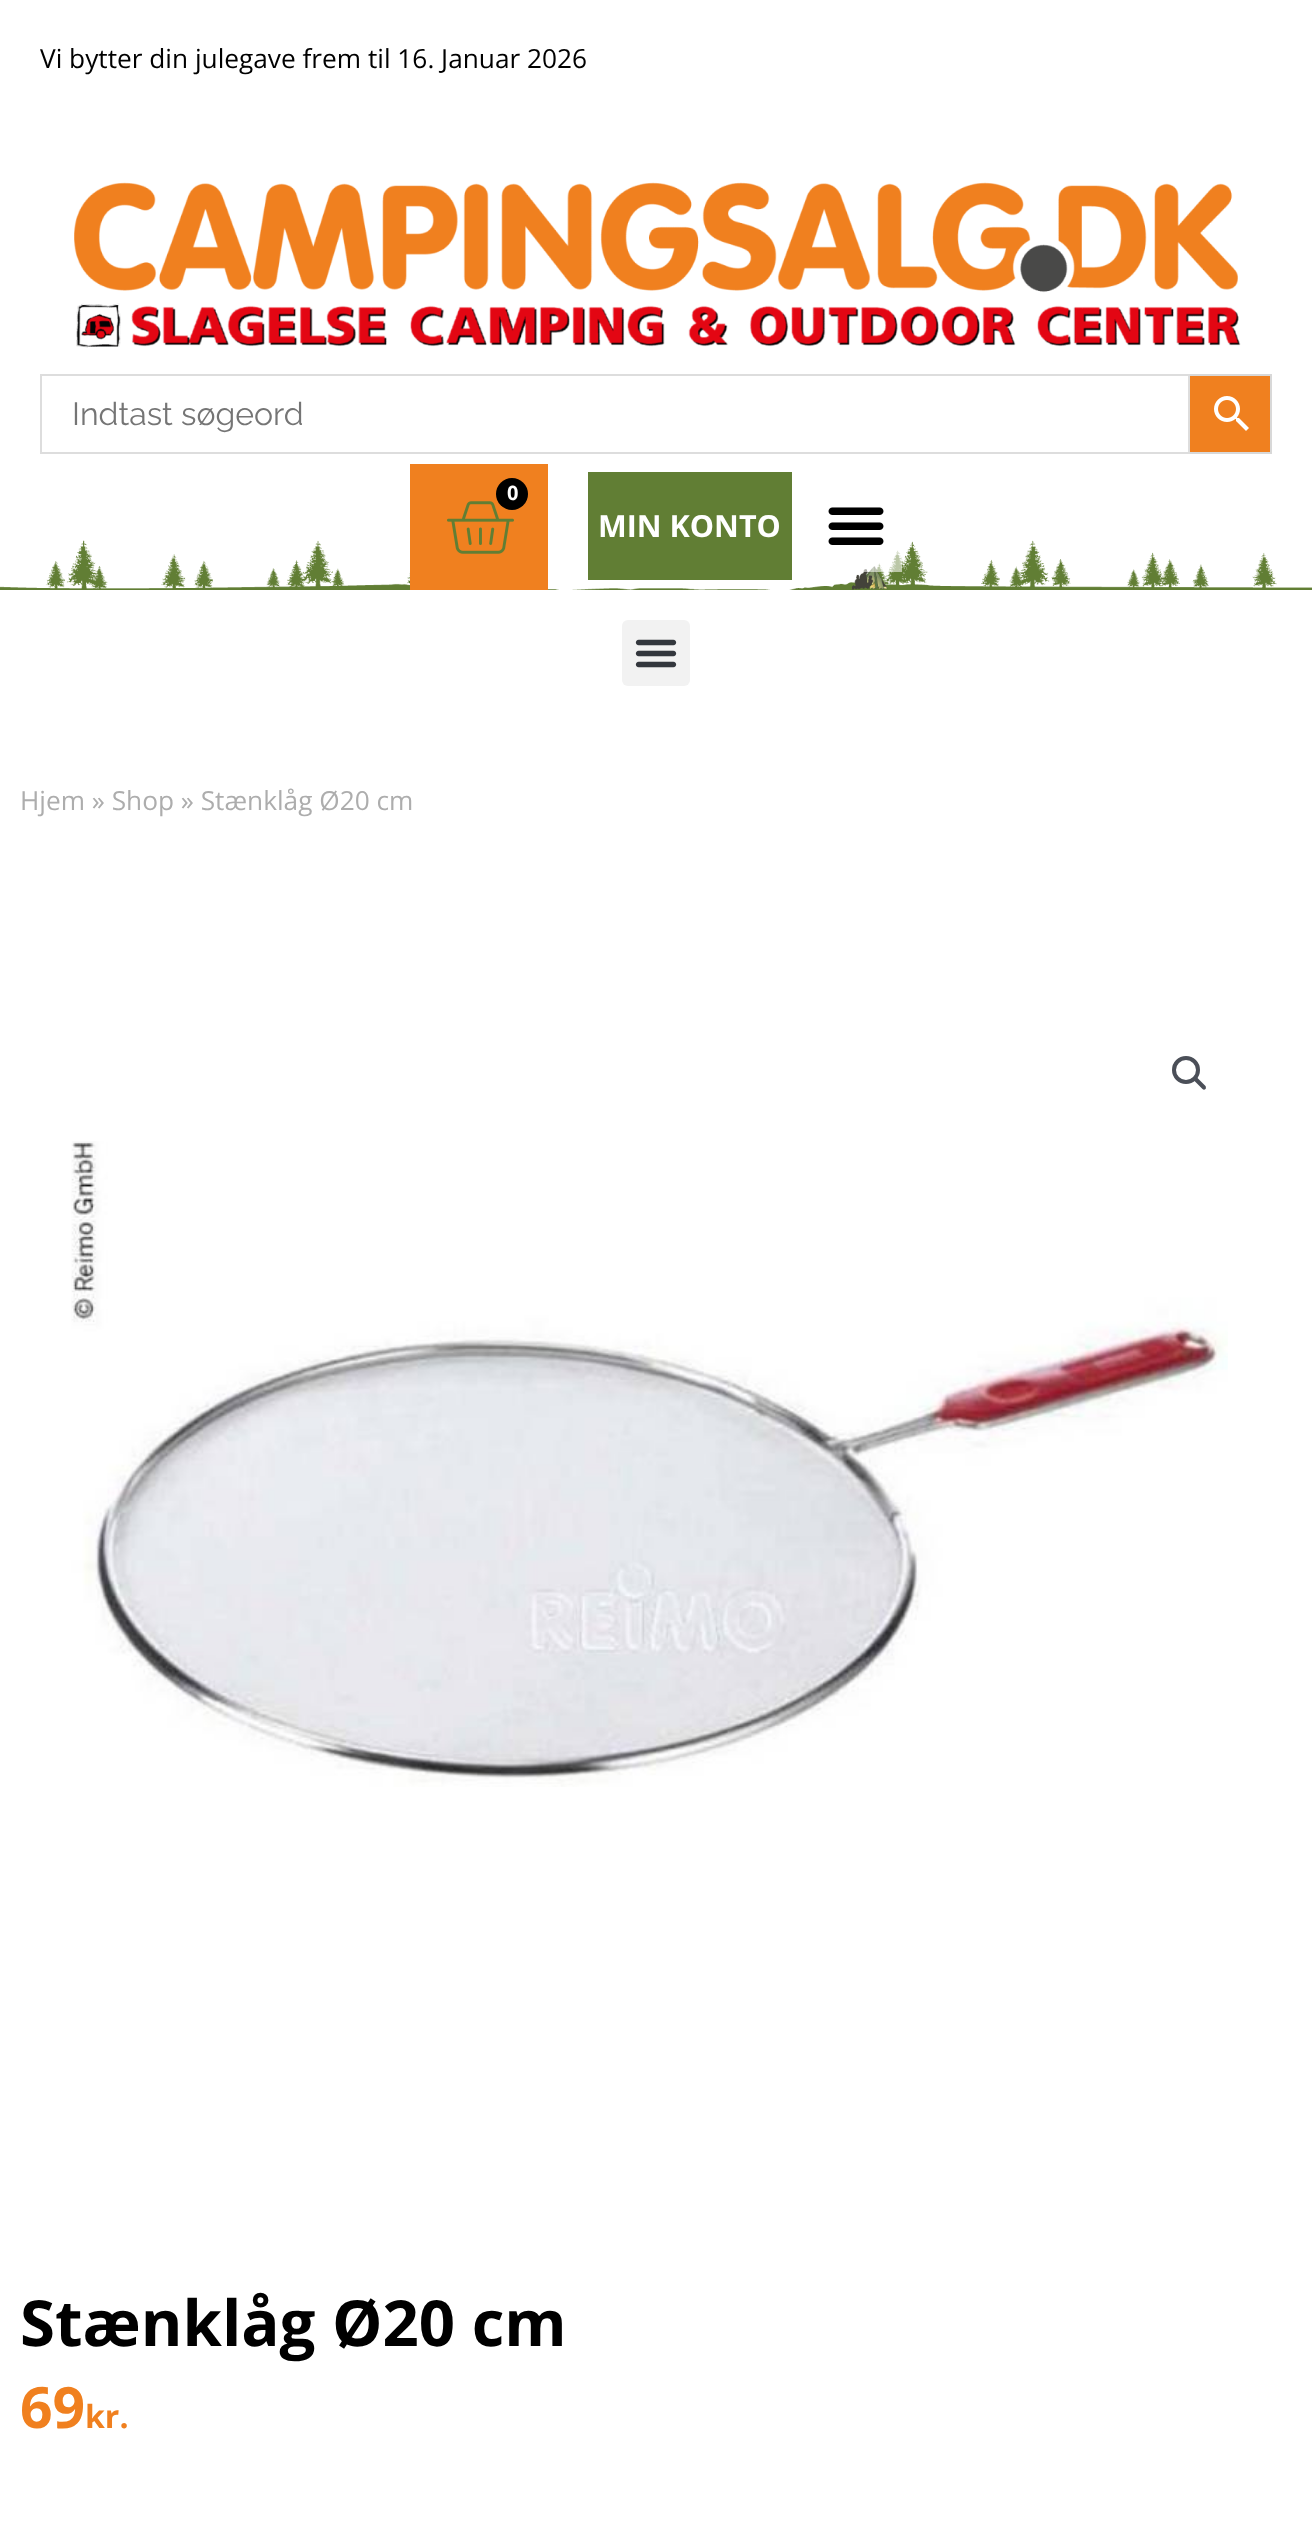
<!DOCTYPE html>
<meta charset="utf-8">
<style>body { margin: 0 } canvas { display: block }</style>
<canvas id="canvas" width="1312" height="2539"></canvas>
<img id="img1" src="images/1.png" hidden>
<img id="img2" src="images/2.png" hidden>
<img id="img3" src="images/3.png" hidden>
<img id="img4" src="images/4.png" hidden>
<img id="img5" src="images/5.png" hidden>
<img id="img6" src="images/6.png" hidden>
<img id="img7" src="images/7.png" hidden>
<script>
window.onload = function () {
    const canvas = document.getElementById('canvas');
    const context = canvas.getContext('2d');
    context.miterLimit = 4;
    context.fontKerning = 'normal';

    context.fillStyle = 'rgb(255, 255, 255)';
    context.fillRect(0, 0, 1312, 2539);
    context.drawImage(document.getElementById('img1'), 0, 540, 1312, 50);
    context.drawImage(document.getElementById('img2'), 74, 182, 1167, 166);
    context.fillStyle = 'rgb(240, 128, 31)';
    context.beginPath();
    context.rect(1189, 375, 82, 78);
    context.fill();
    context.strokeStyle = 'rgb(216, 216, 216)';
    context.lineWidth = 2;
    context.stroke();
    context.strokeStyle = 'rgb(221, 221, 221)';
    context.strokeRect(41, 375, 1148, 78);
    context.drawImage(document.getElementById('img3'), 1214, 396, 35, 35);
    context.fillRect(410, 464, 138, 126);
    context.drawImage(document.getElementById('img4'), 447, 501, 67, 53);
    context.fillStyle = 'rgb(0, 0, 0)';
    context.beginPath();
    context.arc(512, 494, 16, 0, 2 * Math.PI);
    context.fill();
    context.fillStyle = 'rgb(97, 126, 52)';
    context.fillRect(588, 472, 204, 108);
    context.fillStyle = 'rgba(255, 255, 255, 0.57)';
    context.fillRect(863, 550, 39, 22);
    context.drawImage(document.getElementById('img5'), 828, 507, 56, 38);
    context.fillStyle = 'rgb(242, 242, 242)';
    context.beginPath();
    context.roundRect(622, 620, 68, 66, 6);
    context.fill();
    context.drawImage(document.getElementById('img6'), 635, 639, 42, 29);
    context.beginPath();
    context.arc(1186, 1070, 12, 0, 2 * Math.PI);
    context.strokeStyle = 'rgb(75, 79, 88)';
    context.lineWidth = 4;
    context.stroke();
    context.fillStyle = 'rgb(75, 79, 88)';
    context.beginPath();
    context.moveTo(1194, 1077.5);
    context.bezierCurveTo(1195, 1077, 1196, 1077, 1197, 1077.5);
    context.lineTo(1205.5, 1086);
    context.bezierCurveTo(1206, 1087, 1206, 1088.5, 1205.5, 1089);
    context.bezierCurveTo(1204.5, 1090, 1203.5, 1090, 1202.5, 1089);
    context.lineTo(1194, 1080.5);
    context.bezierCurveTo(1193.5, 1080, 1193.5, 1078.5, 1194, 1077.5);
    context.closePath();
    context.fill();
    context.drawImage(document.getElementById('img7'), 71, 1141, 1157, 646);
    context.font = '26.25px Open Sans';
    context.fillStyle = 'rgb(0, 0, 0)';
    context.fillText('Vi bytter din julegave frem til 16. Januar 2026', 40, 68);
    context.font = '32px Raleway';
    context.fillStyle = 'rgb(117, 117, 117)';
    context.fillText('Indtast søgeord', 72, 425);
    context.font = 'bold 20px Open Sans';
    context.fillStyle = 'rgb(255, 255, 255)';
    context.fillText('0', 507, 500);
    context.font = 'bold 30.5px Open Sans';
    context.fillText('MIN KONTO', 598, 537);
    context.font = '26.25px Open Sans';
    context.fillStyle = 'rgb(173, 173, 173)';
    context.fillText('Hjem » Shop » Stænklåg Ø20 cm', 20, 810);
    context.font = 'bold 63.5px Open Sans';
    context.fillStyle = 'rgb(0, 0, 0)';
    context.fillText('Stænklåg Ø20 cm', 20, 2346);
    context.font = 'bold 57px Open Sans';
    context.fillStyle = 'rgb(240, 128, 31)';
    context.fillText('69', 20, 2428);
    context.font = 'bold 32px Open Sans';
    context.fillText('kr.', 85, 2428);
};
</script>
